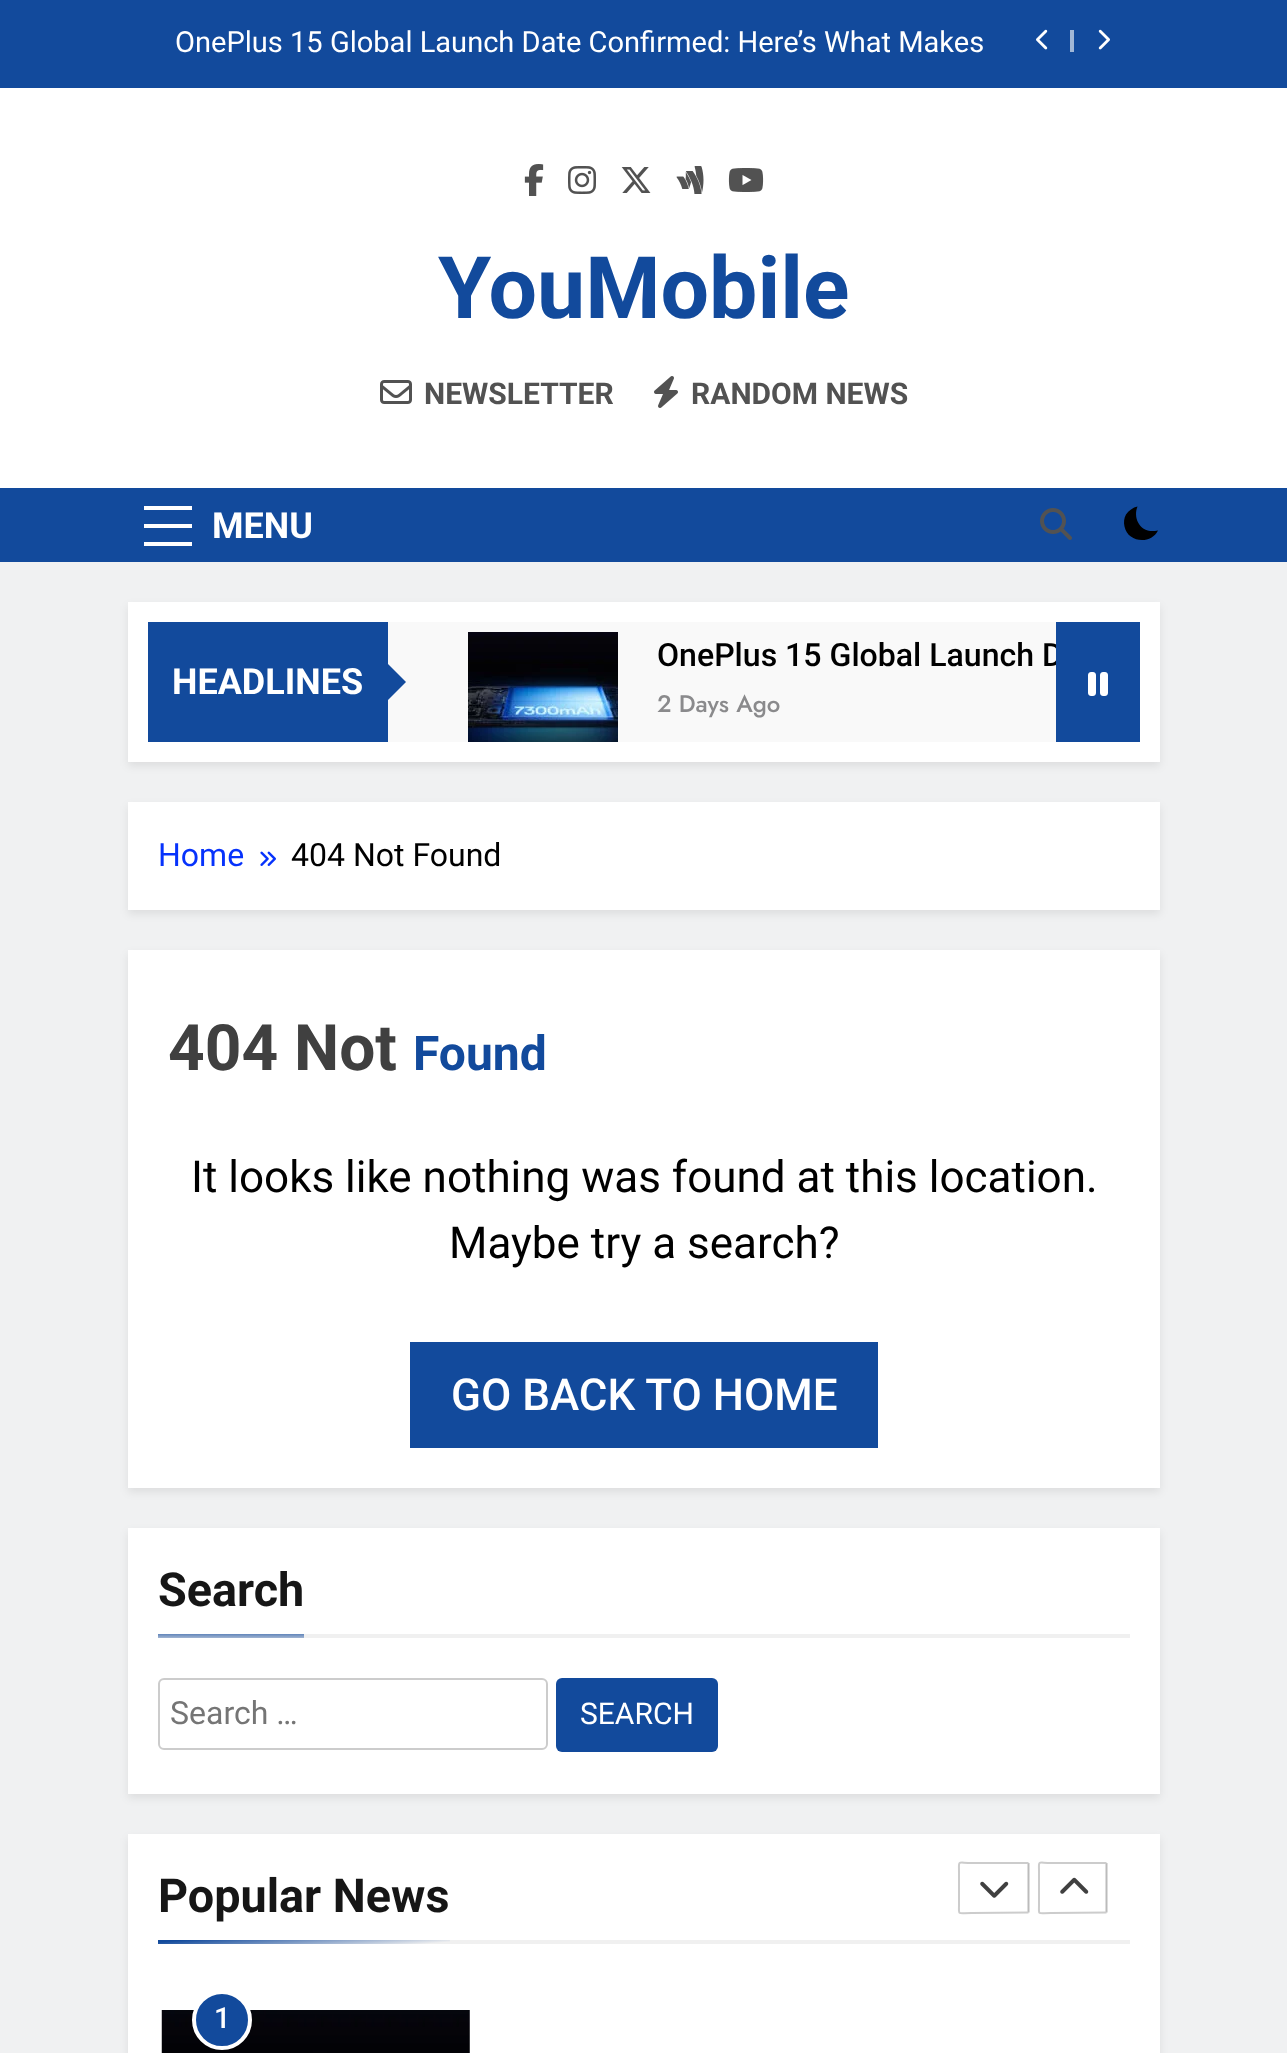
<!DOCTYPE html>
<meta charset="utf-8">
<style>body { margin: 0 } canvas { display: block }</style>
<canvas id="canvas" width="1287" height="2053"></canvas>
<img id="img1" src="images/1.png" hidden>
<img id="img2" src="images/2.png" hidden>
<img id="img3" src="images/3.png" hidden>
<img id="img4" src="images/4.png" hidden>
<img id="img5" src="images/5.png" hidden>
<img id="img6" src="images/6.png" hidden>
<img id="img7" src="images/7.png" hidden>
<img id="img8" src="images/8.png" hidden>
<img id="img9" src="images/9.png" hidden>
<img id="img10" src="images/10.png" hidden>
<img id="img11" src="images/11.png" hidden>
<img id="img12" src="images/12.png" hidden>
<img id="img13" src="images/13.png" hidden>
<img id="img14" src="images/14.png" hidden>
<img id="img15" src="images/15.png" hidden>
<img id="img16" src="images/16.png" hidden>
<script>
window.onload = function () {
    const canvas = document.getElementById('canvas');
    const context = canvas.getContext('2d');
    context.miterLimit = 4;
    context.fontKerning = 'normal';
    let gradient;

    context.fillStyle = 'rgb(240, 241, 242)';
    context.fillRect(0, 0, 1287, 2053);
    context.fillStyle = 'rgb(18, 74, 156)';
    context.fillRect(0, 0, 1287, 88);
    context.drawImage(document.getElementById('img1'), 1036, 29, 12, 21);
    context.fillStyle = 'rgb(160, 183, 215)';
    context.fillRect(1070, 30, 4, 22);
    context.drawImage(document.getElementById('img2'), 1098, 29, 12, 21);
    context.fillStyle = 'rgb(255, 255, 255)';
    context.fillRect(0, 88, 1287, 400);
    context.drawImage(document.getElementById('img3'), 524, 164, 20, 32);
    context.drawImage(document.getElementById('img4'), 568, 166, 28, 28);
    context.drawImage(document.getElementById('img5'), 621, 167, 30, 26);
    context.drawImage(document.getElementById('img6'), 676, 166, 28, 28);
    context.drawImage(document.getElementById('img7'), 728, 168, 36, 24);
    context.drawImage(document.getElementById('img8'), 380, 380, 32, 24);
    context.drawImage(document.getElementById('img9'), 654, 376, 24, 32);
    context.fillStyle = 'rgb(18, 74, 156)';
    context.fillRect(0, 488, 1287, 74);
    context.fillStyle = 'rgb(255, 254, 254)';
    context.fillRect(144, 506, 48, 4);
    context.fillRect(144, 524, 48, 4);
    context.fillRect(144, 542, 48, 4);
    context.drawImage(document.getElementById('img10'), 1040, 508, 32, 32);
    context.fillStyle = 'rgb(0, 0, 0)';
    context.beginPath();
    context.moveTo(1158, 530.5);
    context.lineTo(1155, 531);
    context.bezierCurveTo(1139, 532.5, 1133, 517, 1137.5, 506.5);
    context.bezierCurveTo(1133, 507.5, 1128.5, 510.5, 1126, 514.5);
    context.bezierCurveTo(1124, 518, 1123.5, 522.5, 1124.5, 526.5);
    context.bezierCurveTo(1127.5, 542.5, 1151, 545, 1158, 530.5);
    context.closePath();
    context.fill();
    context.fillStyle = 'rgba(0, 0, 0, 0.08)';
    context.filter = 'blur(4px)';
    context.beginPath();
    context.rect(128, 606, 1032, 160);
    context.fill();
    context.filter = 'none';
    context.fillStyle = 'rgb(255, 255, 255)';
    context.fillRect(128, 602, 1032, 160);
    context.fillStyle = 'rgb(18, 74, 156)';
    context.fillRect(148, 622, 240, 120);
    context.fillStyle = 'rgb(249, 249, 249)';
    context.fillRect(388, 622, 668, 120);
    context.fillStyle = 'rgb(18, 74, 156)';
    context.beginPath();
    context.moveTo(386, 702);
    context.lineTo(386, 662);
    context.lineTo(406, 682);
    context.closePath();
    context.fill();
    context.drawImage(document.getElementById('img11'), 468, 632, 150, 110);
    context.fillRect(1056, 622, 84, 120);
    context.drawImage(document.getElementById('img12'), 1088, 672, 20, 24);
    context.fillStyle = 'rgba(0, 0, 0, 0.08)';
    context.filter = 'blur(4px)';
    context.beginPath();
    context.rect(128, 806, 1032, 108);
    context.fill();
    context.filter = 'none';
    context.fillStyle = 'rgb(255, 255, 255)';
    context.fillRect(128, 802, 1032, 108);
    context.drawImage(document.getElementById('img13'), 260, 851, 16, 15);
    context.fillStyle = 'rgba(0, 0, 0, 0.08)';
    context.filter = 'blur(4px)';
    context.beginPath();
    context.rect(128, 954, 1032, 538);
    context.fill();
    context.filter = 'none';
    context.fillStyle = 'rgb(255, 255, 255)';
    context.fillRect(128, 950, 1032, 538);
    context.fillStyle = 'rgb(18, 74, 156)';
    context.fillRect(410, 1342, 468, 106);
    context.fillStyle = 'rgba(0, 0, 0, 0.08)';
    context.filter = 'blur(4px)';
    context.beginPath();
    context.rect(128, 1532, 1032, 266);
    context.fill();
    context.filter = 'none';
    context.fillStyle = 'rgb(255, 255, 255)';
    context.fillRect(128, 1528, 1032, 266);
    context.fillStyle = 'rgb(240, 240, 240)';
    context.fillRect(304, 1634, 826, 4);
    gradient = context.createLinearGradient(231, 1629, 231, 1643);
    gradient.addColorStop(0, 'rgb(18, 74, 156)');
    gradient.addColorStop(1, 'rgb(240, 240, 240)');
    context.fillStyle = gradient;
    context.fillRect(158, 1634, 146, 4);
    context.beginPath();
    context.roundRect(159, 1679, 388, 70, 5);
    context.strokeStyle = 'rgb(204, 204, 204)';
    context.lineWidth = 2;
    context.stroke();
    context.fillStyle = 'rgb(18, 74, 156)';
    context.beginPath();
    context.roundRect(556, 1678, 162, 74, 6);
    context.fill();
    context.fillStyle = 'rgba(0, 0, 0, 0.08)';
    context.filter = 'blur(4px)';
    context.beginPath();
    context.rect(128, 1838, 1032, 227);
    context.fill();
    context.filter = 'none';
    context.fillStyle = 'rgb(255, 255, 255)';
    context.fillRect(128, 1834, 1032, 219);
    context.fillStyle = 'rgb(240, 240, 240)';
    context.fillRect(450, 1940, 680, 4);
    gradient = context.createLinearGradient(303, 1930, 305, 1954);
    gradient.addColorStop(0, 'rgb(18, 74, 156)');
    gradient.addColorStop(1, 'rgb(240, 240, 240)');
    context.fillStyle = gradient;
    context.fillRect(158, 1940, 292, 4);
    context.beginPath();
    context.moveTo(1028.5, 1863);
    context.lineTo(1028.5, 1912.5);
    context.strokeStyle = 'rgb(187, 187, 187)';
    context.stroke();
    context.beginPath();
    context.moveTo(1028.5, 1912.5);
    context.lineTo(971.5, 1913);
    context.bezierCurveTo(957, 1913, 959, 1916, 959, 1904);
    context.lineTo(959, 1872);
    context.bezierCurveTo(959, 1859.5, 957, 1863, 971.5, 1863);
    context.lineTo(1028.5, 1863);
    context.strokeStyle = 'rgb(204, 204, 204)';
    context.stroke();
    context.drawImage(document.getElementById('img14'), 980, 1881, 29, 17);
    context.beginPath();
    context.moveTo(1106.5, 1863);
    context.lineTo(1106.5, 1912.5);
    context.strokeStyle = 'rgb(187, 187, 187)';
    context.stroke();
    context.beginPath();
    context.moveTo(1106.5, 1912.5);
    context.lineTo(1051, 1913);
    context.bezierCurveTo(1037, 1913, 1039, 1916, 1039, 1904);
    context.lineTo(1039, 1872);
    context.bezierCurveTo(1039, 1859.5, 1037, 1863, 1051, 1863);
    context.lineTo(1106.5, 1863);
    context.strokeStyle = 'rgb(204, 204, 204)';
    context.stroke();
    context.drawImage(document.getElementById('img15'), 1060, 1877, 29, 17);
    context.drawImage(document.getElementById('img16'), 161, 2010, 309, 43);
    context.fillStyle = 'rgb(18, 74, 156)';
    context.beginPath();
    context.arc(222, 2020, 28, 0, 2 * Math.PI);
    context.fill();
    context.strokeStyle = 'rgb(255, 255, 255)';
    context.lineWidth = 4;
    context.stroke();
    context.font = '29.05px Roboto';
    context.fillStyle = 'rgb(255, 255, 255)';
    context.fillText('OnePlus 15 Global Launch Date Confirmed: Here’s What Makes', 175, 52);
    context.font = 'bold 86px Roboto';
    context.fillStyle = 'rgb(18, 74, 156)';
    context.fillText('YouMobile', 438, 318);
    context.font = 'bold 30px Roboto';
    context.fillStyle = 'rgb(82, 82, 82)';
    context.fillText('NEWSLETTER', 424, 404);
    context.fillText('RANDOM NEWS', 691, 404);
    context.font = 'bold 36px Roboto';
    context.fillStyle = 'rgb(255, 255, 255)';
    context.fillText('MENU', 212, 538);
    context.fillText('HEADLINES', 172, 694);
    context.save();
    context.beginPath();
    context.rect(658, 636, 398, 38);
    context.clip();
    context.font = '500 32.1px Roboto';
    context.fillStyle = 'rgb(0, 0, 0)';
    context.fillText('OnePlus 15 Global Launch D', 657, 666);
    context.restore();
    context.font = '500 24px Jost';
    context.fillStyle = 'rgb(138, 138, 140)';
    context.fillText('2 Days Ago', 657, 712);
    context.font = '32px Roboto';
    context.fillStyle = 'rgb(6, 50, 252)';
    context.fillText('Home', 158, 866);
    context.fillStyle = 'rgb(0, 0, 0)';
    context.fillText('404 Not Found', 291, 866);
    context.font = 'bold 64px Roboto';
    context.fillStyle = 'rgb(64, 64, 64)';
    context.fillText('404 Not', 168, 1070);
    context.font = 'bold 48px Roboto';
    context.fillStyle = 'rgb(18, 74, 156)';
    context.fillText('Found', 413, 1070);
    context.font = '44px Roboto';
    context.fillStyle = 'rgb(0, 0, 0)';
    context.fillText('It looks like nothing was found at this location.', 191, 1192);
    context.fillText('Maybe try a search?', 449, 1258);
    context.font = '500 44px Roboto';
    context.fillStyle = 'rgb(255, 255, 255)';
    context.fillText('GO BACK TO HOME', 451, 1410);
    context.font = 'bold 46.75px Roboto';
    context.fillStyle = 'rgb(22, 22, 22)';
    context.fillText('Search', 158, 1606);
    context.font = '32px Roboto';
    context.fillStyle = 'rgb(117, 117, 117)';
    context.fillText('Search …', 170, 1724);
    context.font = '30px Roboto';
    context.fillStyle = 'rgb(255, 255, 255)';
    context.fillText('SEARCH', 580, 1724);
    context.font = 'bold 46.75px Roboto';
    context.fillStyle = 'rgb(22, 22, 22)';
    context.fillText('Popular News', 158, 1912);
    context.font = '500 29px Roboto';
    context.fillStyle = 'rgb(255, 255, 255)';
    context.fillText('1', 214, 2028);
};
</script>
